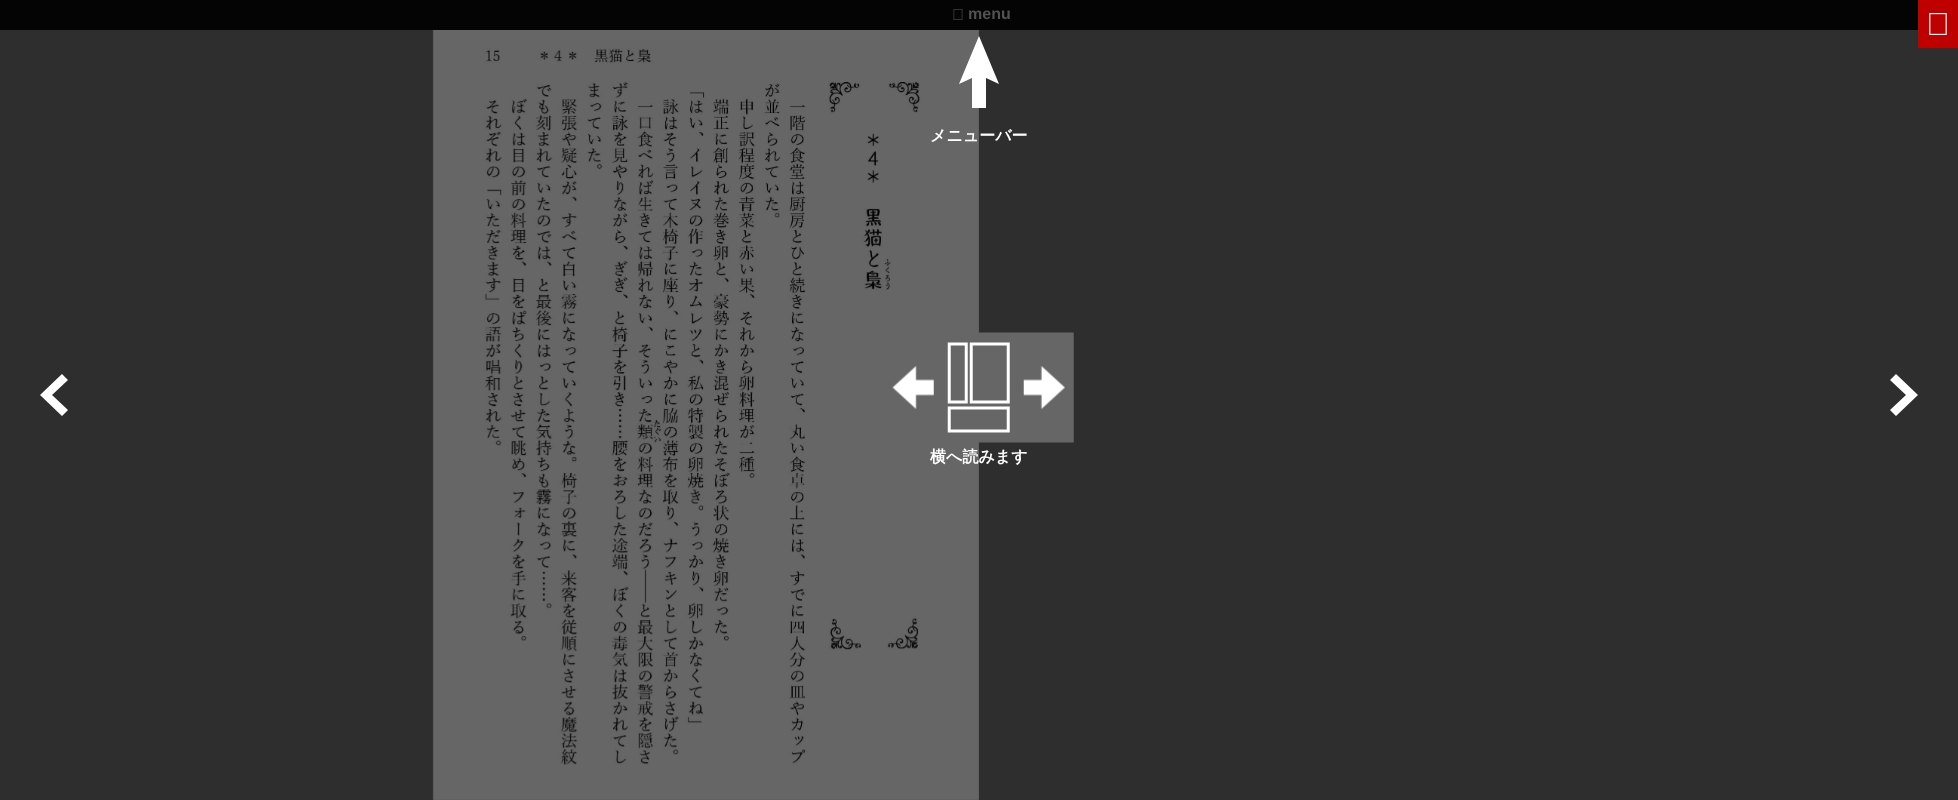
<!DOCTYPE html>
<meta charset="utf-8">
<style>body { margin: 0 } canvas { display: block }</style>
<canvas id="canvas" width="1958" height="800"></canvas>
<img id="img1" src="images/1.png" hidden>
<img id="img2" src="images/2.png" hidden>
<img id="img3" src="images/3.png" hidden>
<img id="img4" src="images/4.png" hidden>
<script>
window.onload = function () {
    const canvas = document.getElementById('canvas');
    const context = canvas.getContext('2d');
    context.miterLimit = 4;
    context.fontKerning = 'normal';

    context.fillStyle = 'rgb(46, 46, 46)';
    context.fillRect(0, 0, 1958, 800);
    context.fillStyle = 'rgb(4, 4, 4)';
    context.fillRect(0, 0, 1918, 30);
    context.drawImage(document.getElementById('img1'), 953, 9, 10, 11);
    context.drawImage(document.getElementById('img2'), 432, 30, 547, 770);
    context.fillStyle = 'rgb(190, 0, 0)';
    context.fillRect(1918, 0, 40, 48);
    context.drawImage(document.getElementById('img3'), 1929, 13, 18, 22);
    context.fillStyle = 'rgb(255, 255, 255)';
    context.beginPath();
    context.moveTo(972, 108);
    context.lineTo(972, 78);
    context.lineTo(959, 84);
    context.lineTo(979, 36);
    context.lineTo(999, 84);
    context.lineTo(986, 78);
    context.lineTo(986, 108);
    context.closePath();
    context.fill();
    context.beginPath();
    context.moveTo(62, 416);
    context.lineTo(40, 395);
    context.lineTo(62, 374);
    context.lineTo(68, 380);
    context.lineTo(52, 395);
    context.lineTo(68, 410);
    context.closePath();
    context.fill();
    context.beginPath();
    context.moveTo(1896, 416);
    context.lineTo(1890, 410);
    context.lineTo(1906, 395);
    context.lineTo(1890, 380);
    context.lineTo(1896, 374);
    context.lineTo(1918, 395);
    context.closePath();
    context.fill();
    context.drawImage(document.getElementById('img4'), 892, 332, 182, 111);
    context.font = 'bold 16px Liberation Sans';
    context.fillStyle = 'rgb(82, 82, 82)';
    context.fillText('menu', 968, 19);
    context.font = 'bold 16px WenQuanYi Zen Hei';
    context.fillStyle = 'rgb(255, 255, 255)';
    context.fillText('メニューバー', 930, 141);
    context.fillText('横へ読みます', 930, 462);
};
</script>
